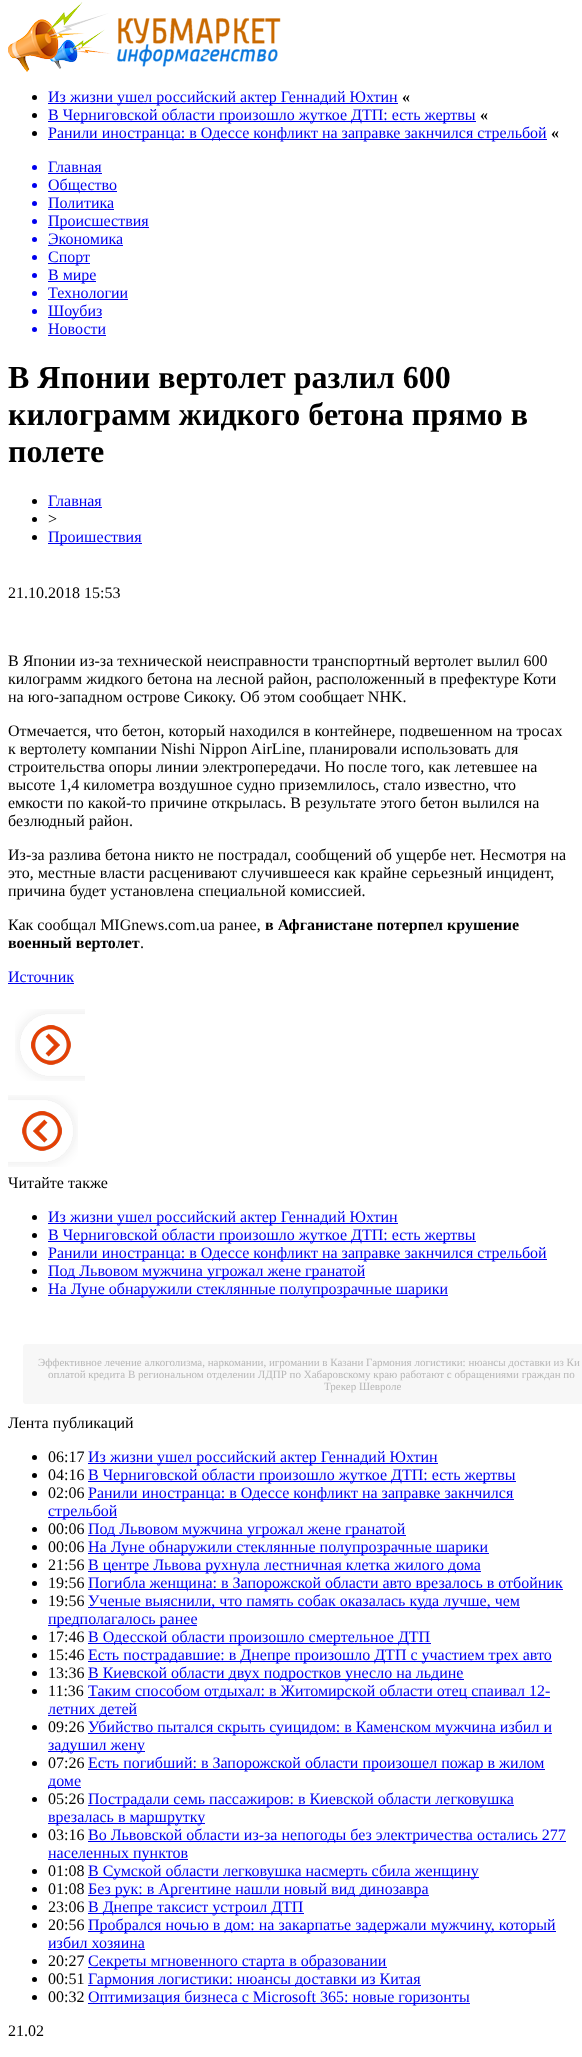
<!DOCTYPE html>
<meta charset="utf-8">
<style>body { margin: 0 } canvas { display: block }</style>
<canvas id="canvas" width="582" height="2057"></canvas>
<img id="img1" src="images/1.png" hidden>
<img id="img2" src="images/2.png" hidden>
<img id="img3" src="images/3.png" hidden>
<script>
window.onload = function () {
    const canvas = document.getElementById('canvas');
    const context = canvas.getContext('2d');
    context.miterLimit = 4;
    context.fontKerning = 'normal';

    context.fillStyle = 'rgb(255, 255, 255)';
    context.fillRect(0, 0, 582, 2057);
    context.drawImage(document.getElementById('img1'), 8, 2, 273, 70);
    context.fillStyle = 'rgb(0, 0, 0)';
    context.beginPath();
    context.arc(34.5, 97.5, 2.5, 0, 2 * Math.PI);
    context.fill();
    context.fillStyle = 'rgb(0, 0, 238)';
    context.fillRect(48, 103, 350, 1);
    context.fillStyle = 'rgb(0, 0, 0)';
    context.beginPath();
    context.arc(34.5, 115.5, 2.5, 0, 2 * Math.PI);
    context.fill();
    context.fillStyle = 'rgb(0, 0, 238)';
    context.fillRect(48, 121, 428, 1);
    context.fillStyle = 'rgb(0, 0, 0)';
    context.beginPath();
    context.arc(34.5, 133.5, 2.5, 0, 2 * Math.PI);
    context.fill();
    context.fillStyle = 'rgb(0, 0, 238)';
    context.fillRect(48, 139, 499, 1);
    context.beginPath();
    context.arc(34.5, 167.5, 2.5, 0, 2 * Math.PI);
    context.fill();
    context.fillRect(48, 173, 54, 1);
    context.beginPath();
    context.arc(34.5, 185.5, 2.5, 0, 2 * Math.PI);
    context.fill();
    context.fillRect(48, 191, 69, 1);
    context.beginPath();
    context.arc(34.5, 203.5, 2.5, 0, 2 * Math.PI);
    context.fill();
    context.fillRect(48, 209, 66, 1);
    context.beginPath();
    context.arc(34.5, 221.5, 2.5, 0, 2 * Math.PI);
    context.fill();
    context.fillRect(48, 227, 101, 1);
    context.beginPath();
    context.arc(34.5, 239.5, 2.5, 0, 2 * Math.PI);
    context.fill();
    context.fillRect(48, 245, 75, 1);
    context.beginPath();
    context.arc(34.5, 257.5, 2.5, 0, 2 * Math.PI);
    context.fill();
    context.fillRect(48, 263, 42, 1);
    context.beginPath();
    context.arc(34.5, 275.5, 2.5, 0, 2 * Math.PI);
    context.fill();
    context.fillRect(48, 281, 48, 1);
    context.beginPath();
    context.arc(34.5, 293.5, 2.5, 0, 2 * Math.PI);
    context.fill();
    context.fillRect(48, 299, 80, 1);
    context.beginPath();
    context.arc(34.5, 311.5, 2.5, 0, 2 * Math.PI);
    context.fill();
    context.fillRect(48, 317, 54, 1);
    context.beginPath();
    context.arc(34.5, 329.5, 2.5, 0, 2 * Math.PI);
    context.fill();
    context.fillRect(48, 335, 58, 1);
    context.fillStyle = 'rgb(0, 0, 0)';
    context.beginPath();
    context.arc(34.5, 501.5, 2.5, 0, 2 * Math.PI);
    context.fill();
    context.fillStyle = 'rgb(0, 0, 238)';
    context.fillRect(48, 507, 54, 1);
    context.fillStyle = 'rgb(0, 0, 0)';
    context.beginPath();
    context.arc(34.5, 519.5, 2.5, 0, 2 * Math.PI);
    context.fill();
    context.beginPath();
    context.arc(34.5, 537.5, 2.5, 0, 2 * Math.PI);
    context.fill();
    context.fillStyle = 'rgb(0, 0, 238)';
    context.fillRect(48, 543, 94, 1);
    context.fillRect(8, 983, 66, 1);
    context.drawImage(document.getElementById('img2'), 15, 1009, 70, 72);
    context.drawImage(document.getElementById('img3'), 8, 1095, 70, 72);
    context.fillStyle = 'rgb(0, 0, 0)';
    context.beginPath();
    context.arc(34.5, 1217.5, 2.5, 0, 2 * Math.PI);
    context.fill();
    context.fillStyle = 'rgb(0, 0, 238)';
    context.fillRect(48, 1223, 350, 1);
    context.fillStyle = 'rgb(0, 0, 0)';
    context.beginPath();
    context.arc(34.5, 1235.5, 2.5, 0, 2 * Math.PI);
    context.fill();
    context.fillStyle = 'rgb(0, 0, 238)';
    context.fillRect(48, 1241, 428, 1);
    context.fillStyle = 'rgb(0, 0, 0)';
    context.beginPath();
    context.arc(34.5, 1253.5, 2.5, 0, 2 * Math.PI);
    context.fill();
    context.fillStyle = 'rgb(0, 0, 238)';
    context.fillRect(48, 1259, 499, 1);
    context.fillStyle = 'rgb(0, 0, 0)';
    context.beginPath();
    context.arc(34.5, 1271.5, 2.5, 0, 2 * Math.PI);
    context.fill();
    context.fillStyle = 'rgb(0, 0, 238)';
    context.fillRect(48, 1277, 317, 1);
    context.fillStyle = 'rgb(0, 0, 0)';
    context.beginPath();
    context.arc(34.5, 1289.5, 2.5, 0, 2 * Math.PI);
    context.fill();
    context.fillStyle = 'rgb(0, 0, 238)';
    context.fillRect(48, 1295, 400, 1);
    context.fillStyle = 'rgb(247, 247, 247)';
    context.beginPath();
    context.roundRect(23, 1344, 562, 60, 3);
    context.fill();
    context.fillStyle = 'rgb(0, 0, 0)';
    context.beginPath();
    context.arc(34.5, 1457.5, 2.5, 0, 2 * Math.PI);
    context.fill();
    context.fillStyle = 'rgb(0, 0, 238)';
    context.fillRect(88, 1463, 350, 1);
    context.fillStyle = 'rgb(0, 0, 0)';
    context.beginPath();
    context.arc(34.5, 1475.5, 2.5, 0, 2 * Math.PI);
    context.fill();
    context.fillStyle = 'rgb(0, 0, 238)';
    context.fillRect(88, 1481, 428, 1);
    context.fillStyle = 'rgb(0, 0, 0)';
    context.beginPath();
    context.arc(34.5, 1493.5, 2.5, 0, 2 * Math.PI);
    context.fill();
    context.fillStyle = 'rgb(0, 0, 238)';
    context.fillRect(88, 1499, 426, 1);
    context.fillRect(48, 1517, 69, 1);
    context.fillStyle = 'rgb(0, 0, 0)';
    context.beginPath();
    context.arc(34.5, 1529.5, 2.5, 0, 2 * Math.PI);
    context.fill();
    context.fillStyle = 'rgb(0, 0, 238)';
    context.fillRect(88, 1535, 318, 1);
    context.fillStyle = 'rgb(0, 0, 0)';
    context.beginPath();
    context.arc(34.5, 1547.5, 2.5, 0, 2 * Math.PI);
    context.fill();
    context.fillStyle = 'rgb(0, 0, 238)';
    context.fillRect(88, 1553, 401, 1);
    context.fillStyle = 'rgb(0, 0, 0)';
    context.beginPath();
    context.arc(34.5, 1565.5, 2.5, 0, 2 * Math.PI);
    context.fill();
    context.fillStyle = 'rgb(0, 0, 238)';
    context.fillRect(88, 1571, 393, 1);
    context.fillStyle = 'rgb(0, 0, 0)';
    context.beginPath();
    context.arc(34.5, 1583.5, 2.5, 0, 2 * Math.PI);
    context.fill();
    context.fillStyle = 'rgb(0, 0, 238)';
    context.fillRect(88, 1589, 475, 1);
    context.fillStyle = 'rgb(0, 0, 0)';
    context.beginPath();
    context.arc(34.5, 1601.5, 2.5, 0, 2 * Math.PI);
    context.fill();
    context.fillStyle = 'rgb(0, 0, 238)';
    context.fillRect(88, 1607, 432, 1);
    context.fillRect(48, 1625, 149, 1);
    context.fillStyle = 'rgb(0, 0, 0)';
    context.beginPath();
    context.arc(34.5, 1637.5, 2.5, 0, 2 * Math.PI);
    context.fill();
    context.fillStyle = 'rgb(0, 0, 238)';
    context.fillRect(88, 1643, 343, 1);
    context.fillStyle = 'rgb(0, 0, 0)';
    context.beginPath();
    context.arc(34.5, 1655.5, 2.5, 0, 2 * Math.PI);
    context.fill();
    context.fillStyle = 'rgb(0, 0, 238)';
    context.fillRect(88, 1661, 464, 1);
    context.fillStyle = 'rgb(0, 0, 0)';
    context.beginPath();
    context.arc(34.5, 1673.5, 2.5, 0, 2 * Math.PI);
    context.fill();
    context.fillStyle = 'rgb(0, 0, 238)';
    context.fillRect(88, 1679, 376, 1);
    context.fillStyle = 'rgb(0, 0, 0)';
    context.beginPath();
    context.arc(34.5, 1691.5, 2.5, 0, 2 * Math.PI);
    context.fill();
    context.fillStyle = 'rgb(0, 0, 238)';
    context.fillRect(88, 1697, 462, 1);
    context.fillRect(48, 1715, 89, 1);
    context.fillStyle = 'rgb(0, 0, 0)';
    context.beginPath();
    context.arc(34.5, 1727.5, 2.5, 0, 2 * Math.PI);
    context.fill();
    context.fillStyle = 'rgb(0, 0, 238)';
    context.fillRect(88, 1733, 464, 1);
    context.fillRect(48, 1751, 97, 1);
    context.fillStyle = 'rgb(0, 0, 0)';
    context.beginPath();
    context.arc(34.5, 1763.5, 2.5, 0, 2 * Math.PI);
    context.fill();
    context.fillStyle = 'rgb(0, 0, 238)';
    context.fillRect(88, 1769, 457, 1);
    context.fillRect(48, 1787, 33, 1);
    context.fillStyle = 'rgb(0, 0, 0)';
    context.beginPath();
    context.arc(34.5, 1799.5, 2.5, 0, 2 * Math.PI);
    context.fill();
    context.fillStyle = 'rgb(0, 0, 238)';
    context.fillRect(88, 1805, 426, 1);
    context.fillRect(48, 1823, 157, 1);
    context.fillStyle = 'rgb(0, 0, 0)';
    context.beginPath();
    context.arc(34.5, 1835.5, 2.5, 0, 2 * Math.PI);
    context.fill();
    context.fillStyle = 'rgb(0, 0, 238)';
    context.fillRect(88, 1841, 478, 1);
    context.fillRect(48, 1859, 140, 1);
    context.fillStyle = 'rgb(0, 0, 0)';
    context.beginPath();
    context.arc(34.5, 1871.5, 2.5, 0, 2 * Math.PI);
    context.fill();
    context.fillStyle = 'rgb(0, 0, 238)';
    context.fillRect(88, 1877, 391, 1);
    context.fillStyle = 'rgb(0, 0, 0)';
    context.beginPath();
    context.arc(34.5, 1889.5, 2.5, 0, 2 * Math.PI);
    context.fill();
    context.fillStyle = 'rgb(0, 0, 238)';
    context.fillRect(88, 1895, 341, 1);
    context.fillStyle = 'rgb(0, 0, 0)';
    context.beginPath();
    context.arc(34.5, 1907.5, 2.5, 0, 2 * Math.PI);
    context.fill();
    context.fillStyle = 'rgb(0, 0, 238)';
    context.fillRect(88, 1913, 216, 1);
    context.fillStyle = 'rgb(0, 0, 0)';
    context.beginPath();
    context.arc(34.5, 1925.5, 2.5, 0, 2 * Math.PI);
    context.fill();
    context.fillStyle = 'rgb(0, 0, 238)';
    context.fillRect(88, 1931, 468, 1);
    context.fillRect(48, 1949, 97, 1);
    context.fillStyle = 'rgb(0, 0, 0)';
    context.beginPath();
    context.arc(34.5, 1961.5, 2.5, 0, 2 * Math.PI);
    context.fill();
    context.fillStyle = 'rgb(0, 0, 238)';
    context.fillRect(88, 1967, 299, 1);
    context.fillStyle = 'rgb(0, 0, 0)';
    context.beginPath();
    context.arc(34.5, 1979.5, 2.5, 0, 2 * Math.PI);
    context.fill();
    context.fillStyle = 'rgb(0, 0, 238)';
    context.fillRect(88, 1985, 333, 1);
    context.fillStyle = 'rgb(0, 0, 0)';
    context.beginPath();
    context.arc(34.5, 1997.5, 2.5, 0, 2 * Math.PI);
    context.fill();
    context.fillStyle = 'rgb(0, 0, 238)';
    context.fillRect(88, 2003, 382, 1);
    context.font = '16px Liberation Serif';
    context.fillText('Из жизни ушел российский актер Геннадий Юхтин', 48, 102);
    context.font = 'bold 16px Liberation Serif';
    context.fillStyle = 'rgb(0, 0, 0)';
    context.fillText('«', 402, 102);
    context.font = '16px Liberation Serif';
    context.fillStyle = 'rgb(0, 0, 238)';
    context.fillText('В Черниговской области произошло жуткое ДТП: есть жертвы', 48, 120);
    context.font = 'bold 16px Liberation Serif';
    context.fillStyle = 'rgb(0, 0, 0)';
    context.fillText('«', 480, 120);
    context.font = '16px Liberation Serif';
    context.fillStyle = 'rgb(0, 0, 238)';
    context.fillText('Ранили иностранца: в Одессе конфликт на заправке закнчился стрельбой', 48, 138);
    context.font = 'bold 16px Liberation Serif';
    context.fillStyle = 'rgb(0, 0, 0)';
    context.fillText('«', 551, 138);
    context.font = '16px Liberation Serif';
    context.fillStyle = 'rgb(0, 0, 238)';
    context.fillText('Главная', 48, 172);
    context.fillText('Общество', 48, 190);
    context.fillText('Политика', 48, 208);
    context.fillText('Происшествия', 48, 226);
    context.fillText('Экономика', 48, 244);
    context.fillText('Спорт', 48, 262);
    context.fillText('В мире', 48, 280);
    context.fillText('Технологии', 48, 298);
    context.fillText('Шоубиз', 48, 316);
    context.fillText('Новости', 48, 334);
    context.font = 'bold 32px Liberation Serif';
    context.fillStyle = 'rgb(0, 0, 0)';
    context.fillText('В Японии вертолет разлил 600', 8, 388);
    context.fillText('килограмм жидкого бетона прямо в', 8, 425);
    context.fillText('полете', 8, 462);
    context.font = '16px Liberation Serif';
    context.fillStyle = 'rgb(0, 0, 238)';
    context.fillText('Главная', 48, 506);
    context.fillStyle = 'rgb(0, 0, 0)';
    context.fillText('>', 48, 524);
    context.fillStyle = 'rgb(0, 0, 238)';
    context.fillText('Проишествия', 48, 542);
    context.fillStyle = 'rgb(0, 0, 0)';
    context.fillText('21.10.2018 15:53', 8, 598);
    context.fillText('В Японии из-за технической неисправности транспортный вертолет вылил 600', 8, 666);
    context.fillText('килограмм жидкого бетона на лесной район, расположенный в префектуре Коти', 8, 684);
    context.fillText('на юго-западном острове Сикоку. Об этом сообщает NHK.', 8, 702);
    context.fillText('Отмечается, что бетон, который находился в контейнере, подвешенном на тросах', 8, 736);
    context.fillText('к вертолету компании Nishi Nippon AirLine, планировали использовать для', 8, 754);
    context.fillText('строительства опоры линии электропередачи. Но после того, как летевшее на', 8, 772);
    context.fillText('высоте 1,4 километра воздушное судно приземлилось, стало известно, что', 8, 790);
    context.fillText('емкости по какой-то причине открылась. В результате этого бетон вылился на', 8, 808);
    context.fillText('безлюдный район.', 8, 826);
    context.fillText('Из-за разлива бетона никто не пострадал, сообщений об ущербе нет. Несмотря на', 8, 860);
    context.fillText('это, местные власти расценивают случившееся как крайне серьезный инцидент,', 8, 878);
    context.fillText('причина будет установлена специальной комиссией.', 8, 896);
    context.fillText('Как сообщал MIGnews.com.uа ранее,', 8, 930);
    context.font = 'bold 16px Liberation Serif';
    context.fillText('в Афганистане потерпел крушение', 265, 930);
    context.fillText('военный вертолет', 8, 948);
    context.font = '16px Liberation Serif';
    context.fillText('.', 140, 948);
    context.fillStyle = 'rgb(0, 0, 238)';
    context.fillText('Источник', 8, 982);
    context.fillStyle = 'rgb(0, 0, 0)';
    context.fillText('Читайте также', 8, 1188);
    context.fillStyle = 'rgb(0, 0, 238)';
    context.fillText('Из жизни ушел российский актер Геннадий Юхтин', 48, 1222);
    context.fillText('В Черниговской области произошло жуткое ДТП: есть жертвы', 48, 1240);
    context.fillText('Ранили иностранца: в Одессе конфликт на заправке закнчился стрельбой', 48, 1258);
    context.fillText('Под Львовом мужчина угрожал жене гранатой', 48, 1276);
    context.fillText('На Луне обнаружили стеклянные полупрозрачные шарики', 48, 1294);
    context.font = '11px Liberation Serif';
    context.fillStyle = 'rgb(184, 184, 184)';
    context.fillText('Эффективное лечение алкоголизма, наркомании, игромании в Казани Гармония логистики: нюансы доставки из Ки', 38, 1366);
    context.fillText('оплатой кредита В региональном отделении ЛДПР по Хабаровскому краю работают с обращениями граждан по', 48, 1378);
    context.fillText('Трекер Шевроле', 324, 1390);
    context.font = '16px Liberation Serif';
    context.fillStyle = 'rgb(0, 0, 0)';
    context.fillText('Лента публикаций', 8, 1428);
    context.fillText('06:17', 48, 1462);
    context.fillStyle = 'rgb(0, 0, 238)';
    context.fillText('Из жизни ушел российский актер Геннадий Юхтин', 88, 1462);
    context.fillStyle = 'rgb(0, 0, 0)';
    context.fillText('04:16', 48, 1480);
    context.fillStyle = 'rgb(0, 0, 238)';
    context.fillText('В Черниговской области произошло жуткое ДТП: есть жертвы', 88, 1480);
    context.fillStyle = 'rgb(0, 0, 0)';
    context.fillText('02:06', 48, 1498);
    context.fillStyle = 'rgb(0, 0, 238)';
    context.fillText('Ранили иностранца: в Одессе конфликт на заправке закнчился', 88, 1498);
    context.fillText('стрельбой', 48, 1516);
    context.fillStyle = 'rgb(0, 0, 0)';
    context.fillText('00:06', 48, 1534);
    context.fillStyle = 'rgb(0, 0, 238)';
    context.fillText('Под Львовом мужчина угрожал жене гранатой', 88, 1534);
    context.fillStyle = 'rgb(0, 0, 0)';
    context.fillText('00:06', 48, 1552);
    context.fillStyle = 'rgb(0, 0, 238)';
    context.fillText('На Луне обнаружили стеклянные полупрозрачные шарики', 88, 1552);
    context.fillStyle = 'rgb(0, 0, 0)';
    context.fillText('21:56', 48, 1570);
    context.fillStyle = 'rgb(0, 0, 238)';
    context.fillText('В центре Львова рухнула лестничная клетка жилого дома', 88, 1570);
    context.fillStyle = 'rgb(0, 0, 0)';
    context.fillText('19:56', 48, 1588);
    context.fillStyle = 'rgb(0, 0, 238)';
    context.fillText('Погибла женщина: в Запорожской области авто врезалось в отбойник', 88, 1588);
    context.fillStyle = 'rgb(0, 0, 0)';
    context.fillText('19:56', 48, 1606);
    context.fillStyle = 'rgb(0, 0, 238)';
    context.fillText('Ученые выяснили, что память собак оказалась куда лучше, чем', 88, 1606);
    context.fillText('предполагалось ранее', 48, 1624);
    context.fillStyle = 'rgb(0, 0, 0)';
    context.fillText('17:46', 48, 1642);
    context.fillStyle = 'rgb(0, 0, 238)';
    context.fillText('В Одесской области произошло смертельное ДТП', 88, 1642);
    context.fillStyle = 'rgb(0, 0, 0)';
    context.fillText('15:46', 48, 1660);
    context.fillStyle = 'rgb(0, 0, 238)';
    context.fillText('Есть пострадавшие: в Днепре произошло ДТП с участием трех авто', 88, 1660);
    context.fillStyle = 'rgb(0, 0, 0)';
    context.fillText('13:36', 48, 1678);
    context.fillStyle = 'rgb(0, 0, 238)';
    context.fillText('В Киевской области двух подростков унесло на льдине', 88, 1678);
    context.fillStyle = 'rgb(0, 0, 0)';
    context.fillText('11:36', 48, 1696);
    context.fillStyle = 'rgb(0, 0, 238)';
    context.fillText('Таким способом отдыхал: в Житомирской области отец спаивал 12-', 88, 1696);
    context.fillText('летних детей', 48, 1714);
    context.fillStyle = 'rgb(0, 0, 0)';
    context.fillText('09:26', 48, 1732);
    context.fillStyle = 'rgb(0, 0, 238)';
    context.fillText('Убийство пытался скрыть суицидом: в Каменском мужчина избил и', 88, 1732);
    context.fillText('задушил жену', 48, 1750);
    context.fillStyle = 'rgb(0, 0, 0)';
    context.fillText('07:26', 48, 1768);
    context.fillStyle = 'rgb(0, 0, 238)';
    context.fillText('Есть погибший: в Запорожской области произошел пожар в жилом', 88, 1768);
    context.fillText('доме', 48, 1786);
    context.fillStyle = 'rgb(0, 0, 0)';
    context.fillText('05:26', 48, 1804);
    context.fillStyle = 'rgb(0, 0, 238)';
    context.fillText('Пострадали семь пассажиров: в Киевской области легковушка', 88, 1804);
    context.fillText('врезалась в маршрутку', 48, 1822);
    context.fillStyle = 'rgb(0, 0, 0)';
    context.fillText('03:16', 48, 1840);
    context.fillStyle = 'rgb(0, 0, 238)';
    context.fillText('Во Львовской области из-за непогоды без электричества остались 277', 88, 1840);
    context.fillText('населенных пунктов', 48, 1858);
    context.fillStyle = 'rgb(0, 0, 0)';
    context.fillText('01:08', 48, 1876);
    context.fillStyle = 'rgb(0, 0, 238)';
    context.fillText('В Сумской области легковушка насмерть сбила женщину', 88, 1876);
    context.fillStyle = 'rgb(0, 0, 0)';
    context.fillText('01:08', 48, 1894);
    context.fillStyle = 'rgb(0, 0, 238)';
    context.fillText('Без рук: в Аргентине нашли новый вид динозавра', 88, 1894);
    context.fillStyle = 'rgb(0, 0, 0)';
    context.fillText('23:06', 48, 1912);
    context.fillStyle = 'rgb(0, 0, 238)';
    context.fillText('В Днепре таксист устроил ДТП', 88, 1912);
    context.fillStyle = 'rgb(0, 0, 0)';
    context.fillText('20:56', 48, 1930);
    context.fillStyle = 'rgb(0, 0, 238)';
    context.fillText('Пробрался ночью в дом: на закарпатье задержали мужчину, который', 88, 1930);
    context.fillText('избил хозяина', 48, 1948);
    context.fillStyle = 'rgb(0, 0, 0)';
    context.fillText('20:27', 48, 1966);
    context.fillStyle = 'rgb(0, 0, 238)';
    context.fillText('Секреты мгновенного старта в образовании', 88, 1966);
    context.fillStyle = 'rgb(0, 0, 0)';
    context.fillText('00:51', 48, 1984);
    context.fillStyle = 'rgb(0, 0, 238)';
    context.fillText('Гармония логистики: нюансы доставки из Китая', 88, 1984);
    context.fillStyle = 'rgb(0, 0, 0)';
    context.fillText('00:32', 48, 2002);
    context.fillStyle = 'rgb(0, 0, 238)';
    context.fillText('Оптимизация бизнеса с Microsoft 365: новые горизонты', 88, 2002);
    context.fillStyle = 'rgb(0, 0, 0)';
    context.fillText('21.02', 8, 2036);
};
</script>
